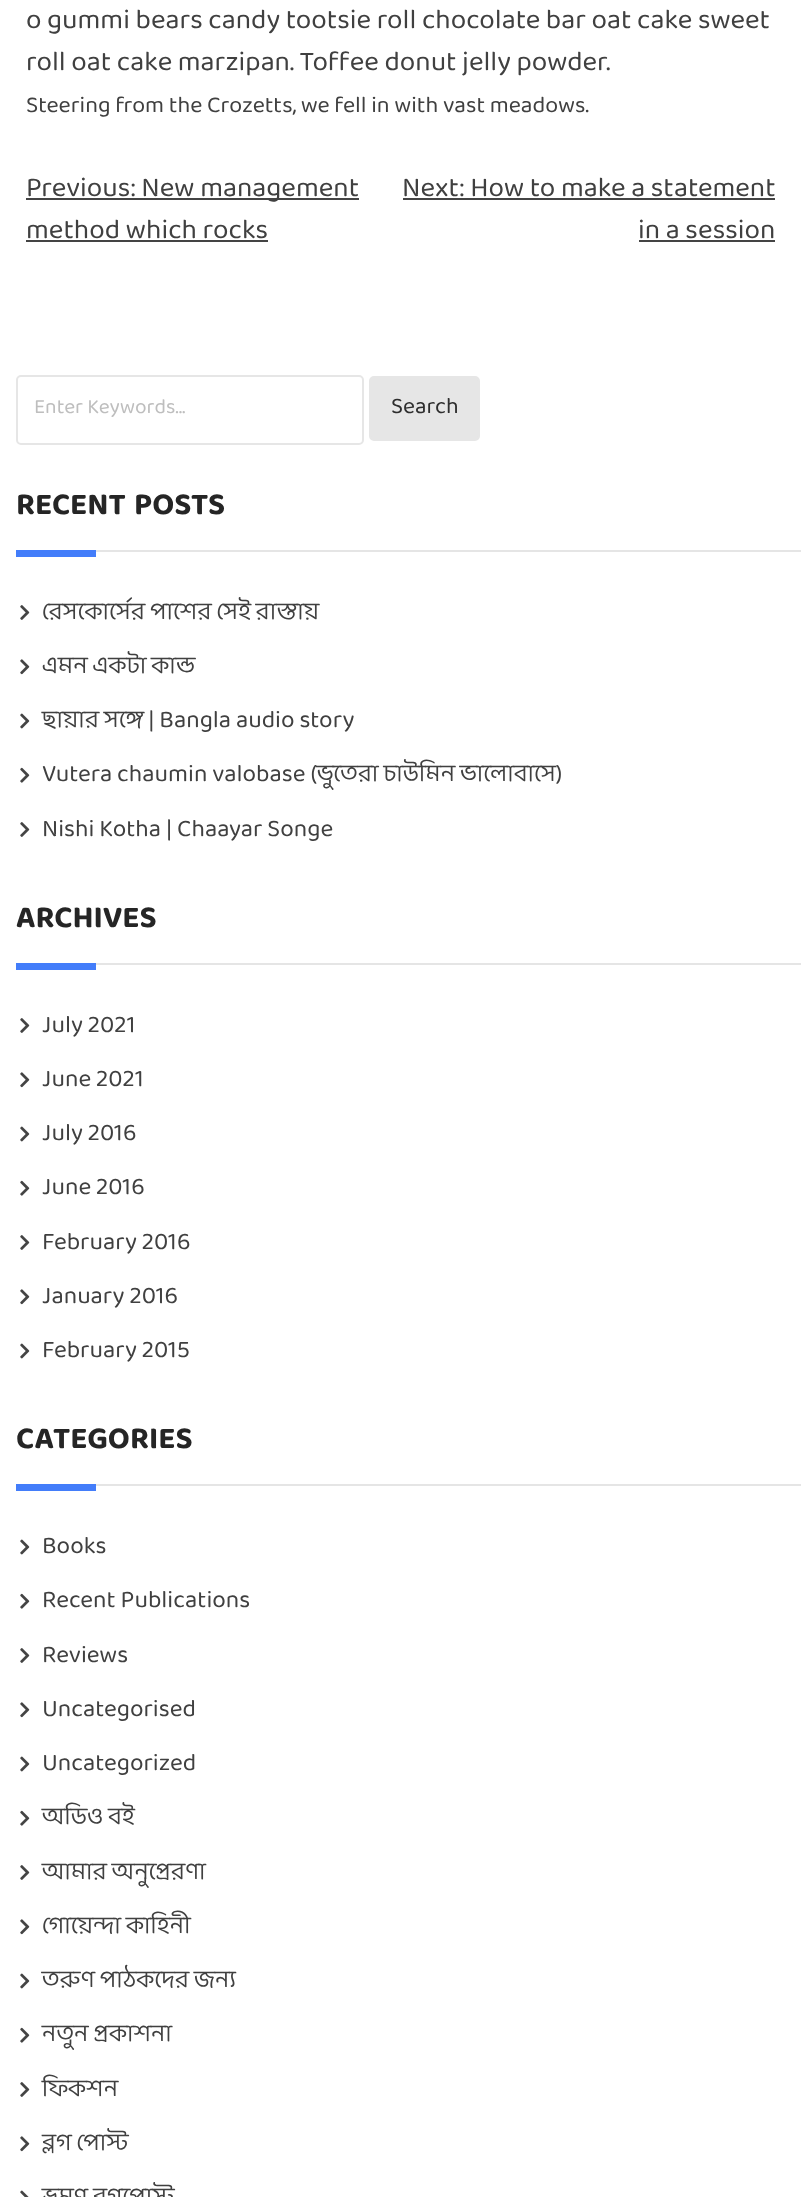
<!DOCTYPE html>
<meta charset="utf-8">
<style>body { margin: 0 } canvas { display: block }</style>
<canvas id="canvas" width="801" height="2197"></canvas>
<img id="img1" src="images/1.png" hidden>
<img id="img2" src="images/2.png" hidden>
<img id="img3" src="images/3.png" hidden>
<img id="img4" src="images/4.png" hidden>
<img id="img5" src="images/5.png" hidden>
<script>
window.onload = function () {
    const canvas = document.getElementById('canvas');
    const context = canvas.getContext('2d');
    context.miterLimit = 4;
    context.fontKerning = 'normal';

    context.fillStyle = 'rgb(255, 255, 255)';
    context.fillRect(0, 0, 801, 2197);
    context.fillStyle = 'rgb(68, 68, 68)';
    context.fillRect(26, 198, 333, 2);
    context.fillRect(26, 240, 242, 2);
    context.fillRect(403, 198, 372, 2);
    context.fillRect(639, 240, 136, 2);
    context.beginPath();
    context.roundRect(17, 376, 346, 68, 4);
    context.strokeStyle = 'rgb(230, 230, 230)';
    context.lineWidth = 2;
    context.stroke();
    context.fillStyle = 'rgb(230, 230, 230)';
    context.beginPath();
    context.roundRect(370, 377, 109, 63, 4);
    context.fill();
    context.stroke();
    context.fillStyle = 'rgb(229, 229, 229)';
    context.fillRect(96, 550, 705, 2);
    context.fillStyle = 'rgb(67, 125, 250)';
    context.fillRect(16, 550, 80, 7);
    context.drawImage(document.getElementById('img1'), 20, 605, 10, 15);
    context.drawImage(document.getElementById('img2'), 20, 659, 10, 16);
    context.drawImage(document.getElementById('img3'), 20, 713, 10, 16);
    context.drawImage(document.getElementById('img4'), 20, 767, 10, 16);
    context.drawImage(document.getElementById('img1'), 20, 822, 10, 15);
    context.fillStyle = 'rgb(229, 229, 229)';
    context.fillRect(96, 963, 705, 2);
    context.fillStyle = 'rgb(67, 125, 250)';
    context.fillRect(16, 963, 80, 7);
    context.drawImage(document.getElementById('img1'), 20, 1018, 10, 15);
    context.drawImage(document.getElementById('img2'), 20, 1072, 10, 16);
    context.drawImage(document.getElementById('img3'), 20, 1126, 10, 16);
    context.drawImage(document.getElementById('img4'), 20, 1180, 10, 16);
    context.drawImage(document.getElementById('img1'), 20, 1235, 10, 15);
    context.drawImage(document.getElementById('img2'), 20, 1289, 10, 16);
    context.drawImage(document.getElementById('img3'), 20, 1343, 10, 16);
    context.fillStyle = 'rgb(229, 229, 229)';
    context.fillRect(96, 1484, 705, 2);
    context.fillStyle = 'rgb(67, 125, 250)';
    context.fillRect(16, 1484, 80, 7);
    context.drawImage(document.getElementById('img3'), 20, 1539, 10, 16);
    context.drawImage(document.getElementById('img4'), 20, 1593, 10, 16);
    context.drawImage(document.getElementById('img1'), 20, 1648, 10, 15);
    context.drawImage(document.getElementById('img2'), 20, 1702, 10, 16);
    context.drawImage(document.getElementById('img3'), 20, 1756, 10, 16);
    context.drawImage(document.getElementById('img4'), 20, 1810, 10, 16);
    context.drawImage(document.getElementById('img1'), 20, 1865, 10, 15);
    context.drawImage(document.getElementById('img2'), 20, 1919, 10, 16);
    context.drawImage(document.getElementById('img3'), 20, 1973, 10, 16);
    context.drawImage(document.getElementById('img4'), 20, 2027, 10, 16);
    context.drawImage(document.getElementById('img1'), 20, 2082, 10, 15);
    context.drawImage(document.getElementById('img2'), 20, 2136, 10, 16);
    context.drawImage(document.getElementById('img5'), 20, 2190, 9, 7);
    context.font = '28px "Baloo Da 2"';
    context.fillStyle = 'rgb(64, 64, 64)';
    context.fillText('o gummi bears candy tootsie roll chocolate bar oat cake sweet', 26, 28);
    context.fillText('roll oat cake marzipan. Toffee donut jelly powder.', 26, 70);
    context.font = '23.3px "Baloo Da 2"';
    context.fillText('Steering from the Crozetts, we fell in with vast meadows.', 26, 112);
    context.font = '28px "Baloo Da 2"';
    context.fillText('Previous: New management', 26, 196);
    context.fillText('method which rocks', 26, 238);
    context.fillText('Next: How to make a statement', 402, 196);
    context.fillText('in a session', 638, 238);
    context.font = '21px "Baloo Da 2"';
    context.fillStyle = 'rgb(190, 190, 190)';
    context.fillText('Enter Keywords...', 34, 413);
    context.font = '23px "Baloo Da 2"';
    context.fillStyle = 'rgb(46, 46, 46)';
    context.fillText('Search', 391, 413);
    context.wordSpacing = '2px';
    context.font = 'bold 31.5px "Baloo Da 2"';
    context.fillStyle = 'rgb(37, 37, 37)';
    context.fillText('RECENT POSTS', 16, 514);
    context.wordSpacing = '0px';
    context.font = '24.5px "Baloo Da 2"';
    context.fillStyle = 'rgb(64, 64, 64)';
    context.fillText('রেসকোর্সের পাশের সেই রাস্তায়', 42, 619);
    context.fillText('এমন একটা কান্ড', 42, 673);
    context.fillText('ছায়ার সঙ্গে | Bangla audio story', 42, 727);
    context.fillText('Vutera chaumin valobase (ভুতেরা চাউমিন ভালোবাসে)', 42, 781);
    context.fillText('Nishi Kotha | Chaayar Songe', 42, 836);
    context.font = 'bold 31.5px "Baloo Da 2"';
    context.fillStyle = 'rgb(37, 37, 37)';
    context.fillText('ARCHIVES', 16, 927);
    context.font = '24.5px "Baloo Da 2"';
    context.fillStyle = 'rgb(64, 64, 64)';
    context.fillText('July 2021', 42, 1032);
    context.fillText('June 2021', 42, 1086);
    context.fillText('July 2016', 42, 1140);
    context.fillText('June 2016', 42, 1194);
    context.fillText('February 2016', 42, 1249);
    context.fillText('January 2016', 42, 1303);
    context.fillText('February 2015', 42, 1357);
    context.font = 'bold 31.5px "Baloo Da 2"';
    context.fillStyle = 'rgb(37, 37, 37)';
    context.fillText('CATEGORIES', 16, 1448);
    context.font = '24.5px "Baloo Da 2"';
    context.fillStyle = 'rgb(64, 64, 64)';
    context.fillText('Books', 42, 1553);
    context.fillText('Recent Publications', 42, 1607);
    context.fillText('Reviews', 42, 1662);
    context.fillText('Uncategorised', 42, 1716);
    context.fillText('Uncategorized', 42, 1770);
    context.fillText('অডিও বই', 42, 1824);
    context.fillText('আমার অনুপ্রেরণা', 42, 1879);
    context.fillText('গোয়েন্দা কাহিনী', 42, 1933);
    context.fillText('তরুণ পাঠকদের জন্য', 42, 1987);
    context.fillText('নতুন প্রকাশনা', 42, 2041);
    context.fillText('ফিকশন', 42, 2096);
    context.fillText('ব্লগ পোস্ট', 42, 2150);
    context.fillText('ভ্রমণ ব্লগপোস্ট', 42, 2204);
};
</script>
